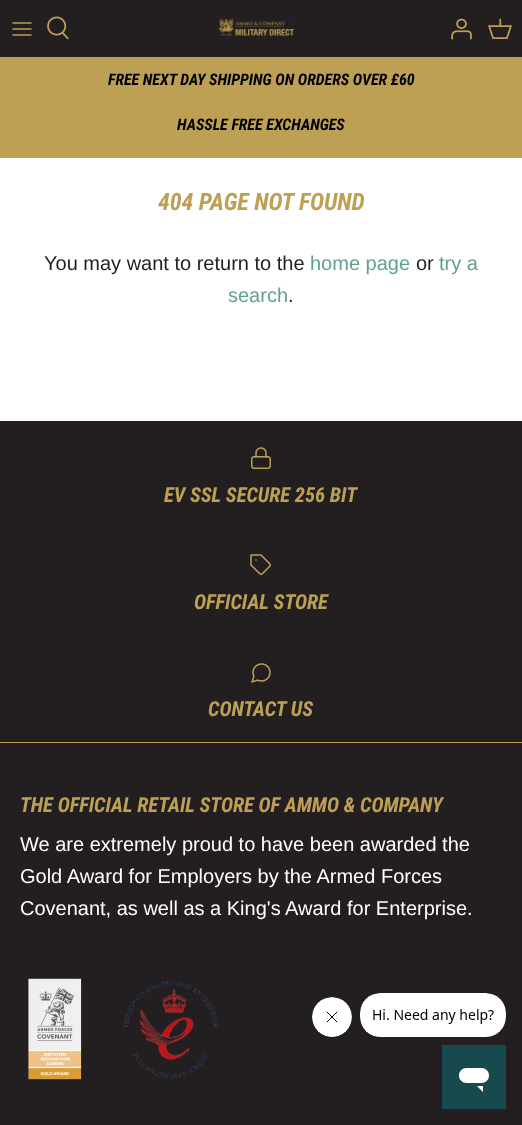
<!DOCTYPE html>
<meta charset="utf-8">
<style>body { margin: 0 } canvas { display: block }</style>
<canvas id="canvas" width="522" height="1125"></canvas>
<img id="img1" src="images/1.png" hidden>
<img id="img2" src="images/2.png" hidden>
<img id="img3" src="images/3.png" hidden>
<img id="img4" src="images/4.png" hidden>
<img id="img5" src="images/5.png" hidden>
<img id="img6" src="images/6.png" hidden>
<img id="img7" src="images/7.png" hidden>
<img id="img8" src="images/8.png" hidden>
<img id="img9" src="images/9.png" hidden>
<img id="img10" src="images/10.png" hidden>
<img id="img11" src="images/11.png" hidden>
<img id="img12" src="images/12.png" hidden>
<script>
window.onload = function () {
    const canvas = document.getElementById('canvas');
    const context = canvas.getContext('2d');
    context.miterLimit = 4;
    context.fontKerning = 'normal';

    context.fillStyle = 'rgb(255, 255, 255)';
    context.fillRect(0, 0, 522, 1125);
    context.fillStyle = 'rgb(35, 31, 32)';
    context.fillRect(0, 0, 522, 57);
    context.drawImage(document.getElementById('img1'), 12, 22, 20, 14);
    context.drawImage(document.getElementById('img2'), 47, 16, 22, 24);
    context.drawImage(document.getElementById('img3'), 218, 18, 77, 18);
    context.drawImage(document.getElementById('img4'), 451, 18, 21, 22);
    context.drawImage(document.getElementById('img5'), 488, 18, 24, 21);
    context.fillStyle = 'rgb(190, 160, 85)';
    context.fillRect(0, 57, 522, 101);
    context.fillStyle = 'rgb(35, 31, 32)';
    context.fillRect(0, 421, 522, 704);
    context.drawImage(document.getElementById('img6'), 251, 447, 20, 22);
    context.drawImage(document.getElementById('img7'), 250, 554, 21, 21);
    context.drawImage(document.getElementById('img8'), 251, 663, 20, 20);
    context.fillStyle = 'rgb(190, 160, 85)';
    context.fillRect(0, 742, 522, 1);
    context.drawImage(document.getElementById('img9'), 28, 978, 191, 102);
    context.drawImage(document.getElementById('img10'), 312, 997, 40, 40);
    context.drawImage(document.getElementById('img11'), 360, 993, 146, 44);
    context.drawImage(document.getElementById('img12'), 442, 1045, 64, 64);
    context.font = 'italic bold 16px Roboto Condensed';
    context.fillStyle = 'rgb(0, 0, 0)';
    context.fillText('FREE NEXT DAY SHIPPING ON ORDERS OVER £60', 108, 85);
    context.fillText('HASSLE FREE EXCHANGES', 177, 130);
    context.font = 'italic bold 24px Roboto Condensed';
    context.fillStyle = 'rgb(190, 160, 85)';
    context.fillText('404 PAGE NOT FOUND', 158, 210);
    context.font = '20px Arimo';
    context.fillStyle = 'rgb(35, 31, 32)';
    context.fillText('You may want to return to the', 44, 270);
    context.fillStyle = 'rgb(98, 162, 135)';
    context.fillText('home page', 310, 270);
    context.fillStyle = 'rgb(35, 31, 32)';
    context.fillText('or', 416, 270);
    context.fillStyle = 'rgb(98, 162, 135)';
    context.fillText('try a', 439, 270);
    context.fillText('search', 228, 302);
    context.fillStyle = 'rgb(35, 31, 32)';
    context.fillText('.', 288, 302);
    context.font = 'italic bold 20.6px Roboto Condensed';
    context.fillStyle = 'rgb(190, 160, 85)';
    context.fillText('EV SSL SECURE 256 BIT', 164, 502);
    context.fillText('OFFICIAL STORE', 194, 609);
    context.fillText('CONTACT US', 208, 716);
    context.fillText('THE OFFICIAL RETAIL STORE OF AMMO & COMPANY', 20, 812);
    context.font = '20px Arimo';
    context.fillStyle = 'rgb(255, 255, 255)';
    context.fillText('We are extremely proud to have been awarded the', 20, 851);
    context.fillText('Gold Award for Employers by the Armed Forces', 20, 883);
    context.fillText('Covenant, as well as a King\'s Award for Enterprise.', 20, 915);
};
</script>
